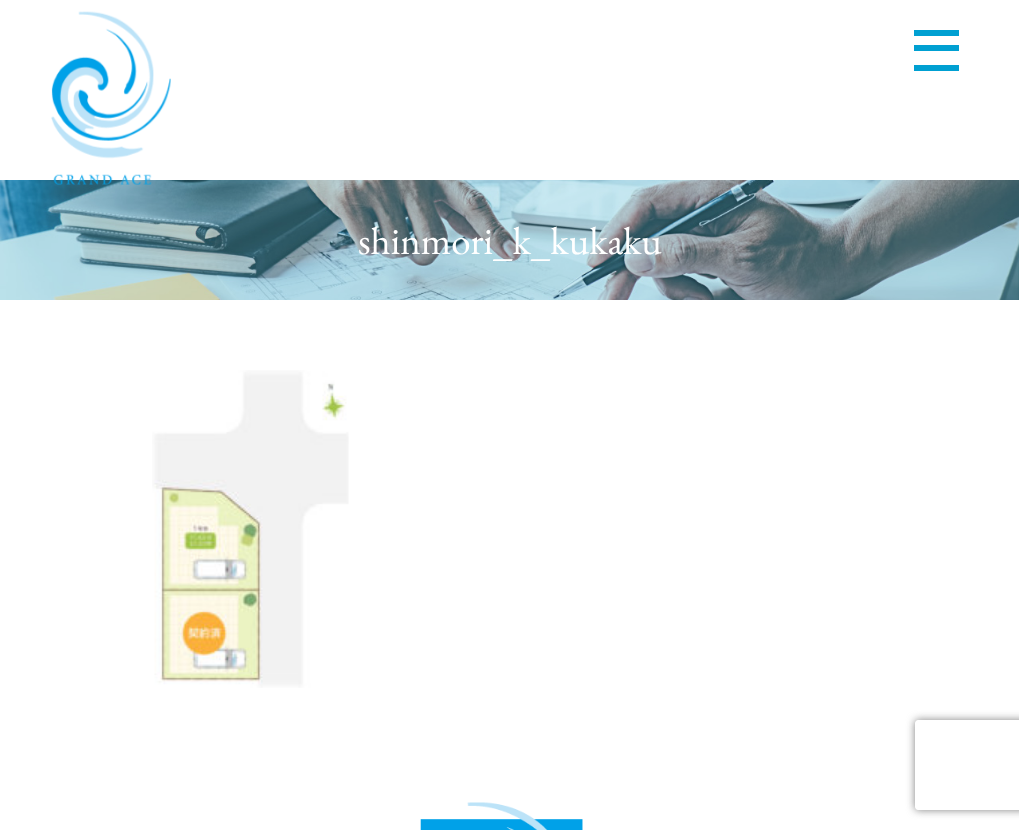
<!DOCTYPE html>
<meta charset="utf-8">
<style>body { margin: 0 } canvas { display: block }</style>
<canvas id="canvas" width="1019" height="830"></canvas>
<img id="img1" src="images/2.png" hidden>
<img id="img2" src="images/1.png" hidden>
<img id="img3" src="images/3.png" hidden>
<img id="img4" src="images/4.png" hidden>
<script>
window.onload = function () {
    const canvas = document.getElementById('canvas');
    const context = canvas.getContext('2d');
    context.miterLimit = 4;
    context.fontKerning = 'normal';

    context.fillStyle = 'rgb(255, 255, 255)';
    context.fillRect(0, 0, 1019, 830);
    context.drawImage(document.getElementById('img1'), 0, 180, 1019, 120);
    context.drawImage(document.getElementById('img2'), 51, 11, 120, 174);
    context.fillStyle = 'rgb(0, 160, 210)';
    context.fillRect(914, 30, 45, 6);
    context.fillRect(914, 45, 45, 6);
    context.fillRect(914, 65, 45, 6);
    context.drawImage(document.getElementById('img3'), 152, 370, 197, 318);
    context.drawImage(document.getElementById('img4'), 420, 802, 163, 28);
    context.save();
    context.beginPath();
    context.moveTo(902, 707);
    context.lineTo(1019, 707);
    context.lineTo(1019, 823);
    context.lineTo(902, 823);
    context.closePath();
    context.moveTo(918, 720);
    context.lineTo(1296, 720);
    context.bezierCurveTo(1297.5, 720, 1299, 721.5, 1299, 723);
    context.lineTo(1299, 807);
    context.bezierCurveTo(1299, 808.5, 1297.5, 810, 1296, 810);
    context.lineTo(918, 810);
    context.bezierCurveTo(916.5, 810, 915, 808.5, 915, 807);
    context.lineTo(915, 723);
    context.bezierCurveTo(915, 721.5, 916.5, 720, 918, 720);
    context.closePath();
    context.clip('evenodd');
    context.fillStyle = 'rgb(128, 128, 128)';
    context.filter = 'blur(4px)';
    context.beginPath();
    context.roundRect(915, 720, 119, 90, 3);
    context.fill();
    context.filter = 'none';
    context.restore();
    context.font = '39px EB Garamond';
    context.fillStyle = 'rgb(255, 255, 255)';
    context.fillText('shinmori_k_kukaku', 358, 254);
};
</script>
